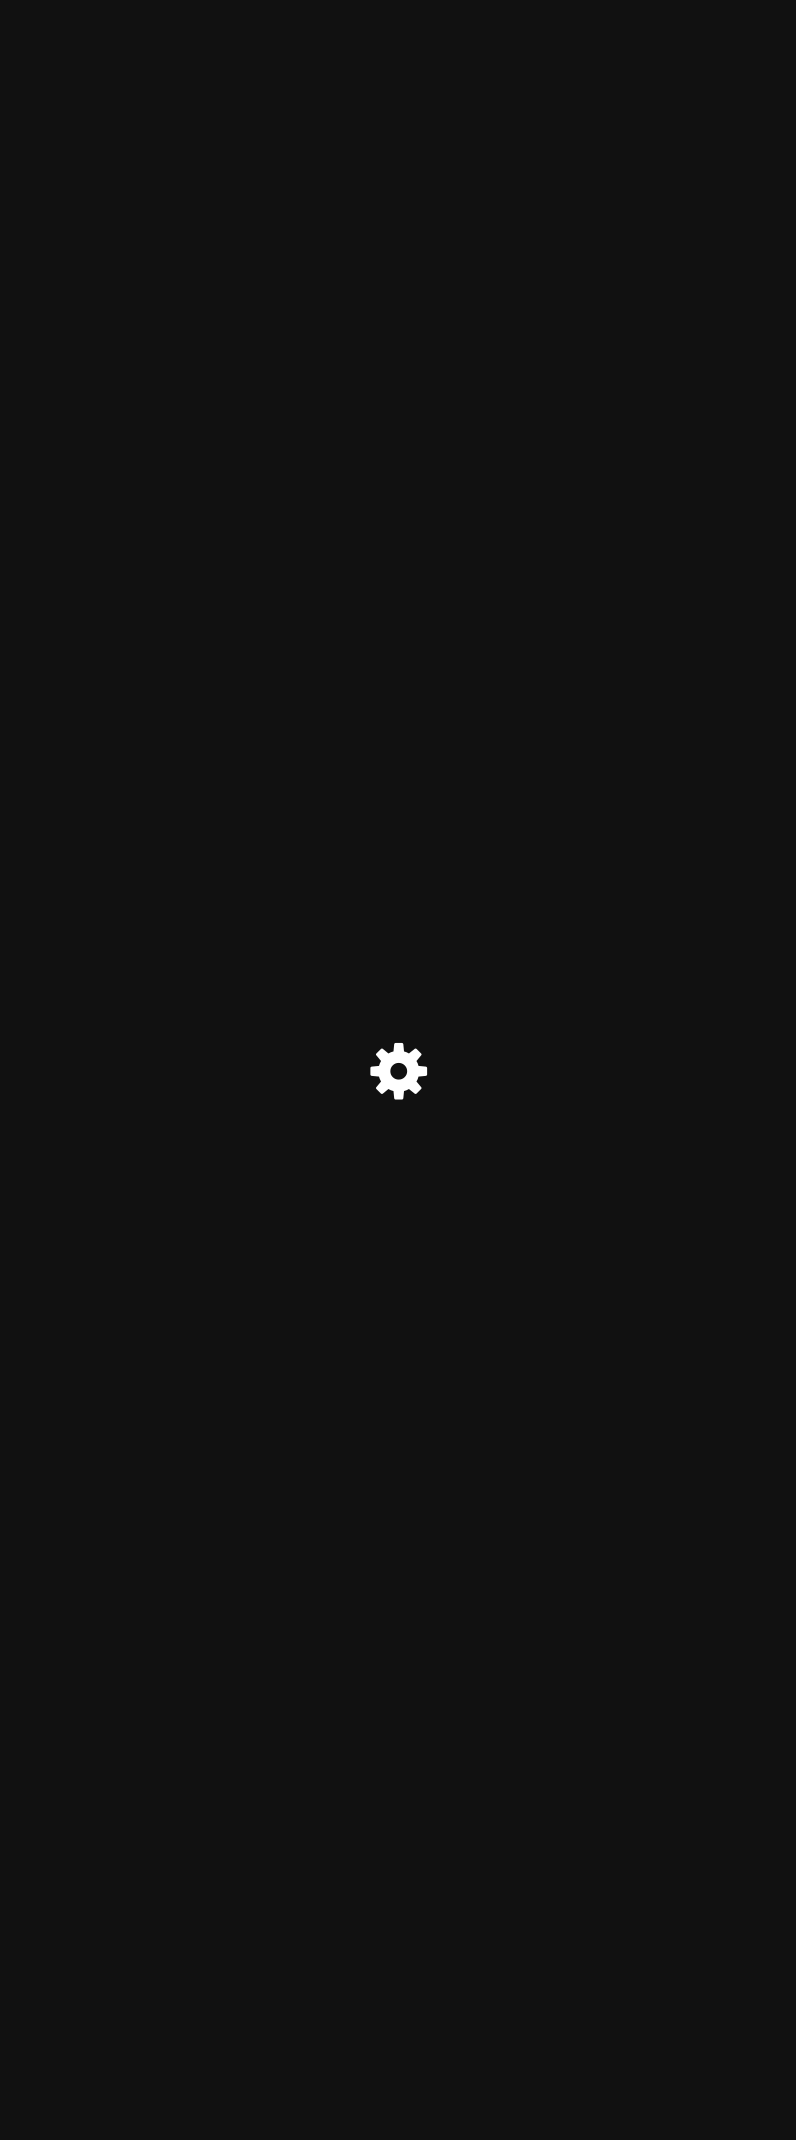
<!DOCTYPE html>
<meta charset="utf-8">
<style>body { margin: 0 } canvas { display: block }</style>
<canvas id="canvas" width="796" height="2140"></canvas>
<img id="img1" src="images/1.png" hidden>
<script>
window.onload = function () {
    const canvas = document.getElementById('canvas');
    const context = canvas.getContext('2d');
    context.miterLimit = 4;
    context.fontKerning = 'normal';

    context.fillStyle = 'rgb(17, 17, 17)';
    context.fillRect(0, 0, 796, 2140);
    context.drawImage(document.getElementById('img1'), 370, 1042, 58, 58);
};
</script>
